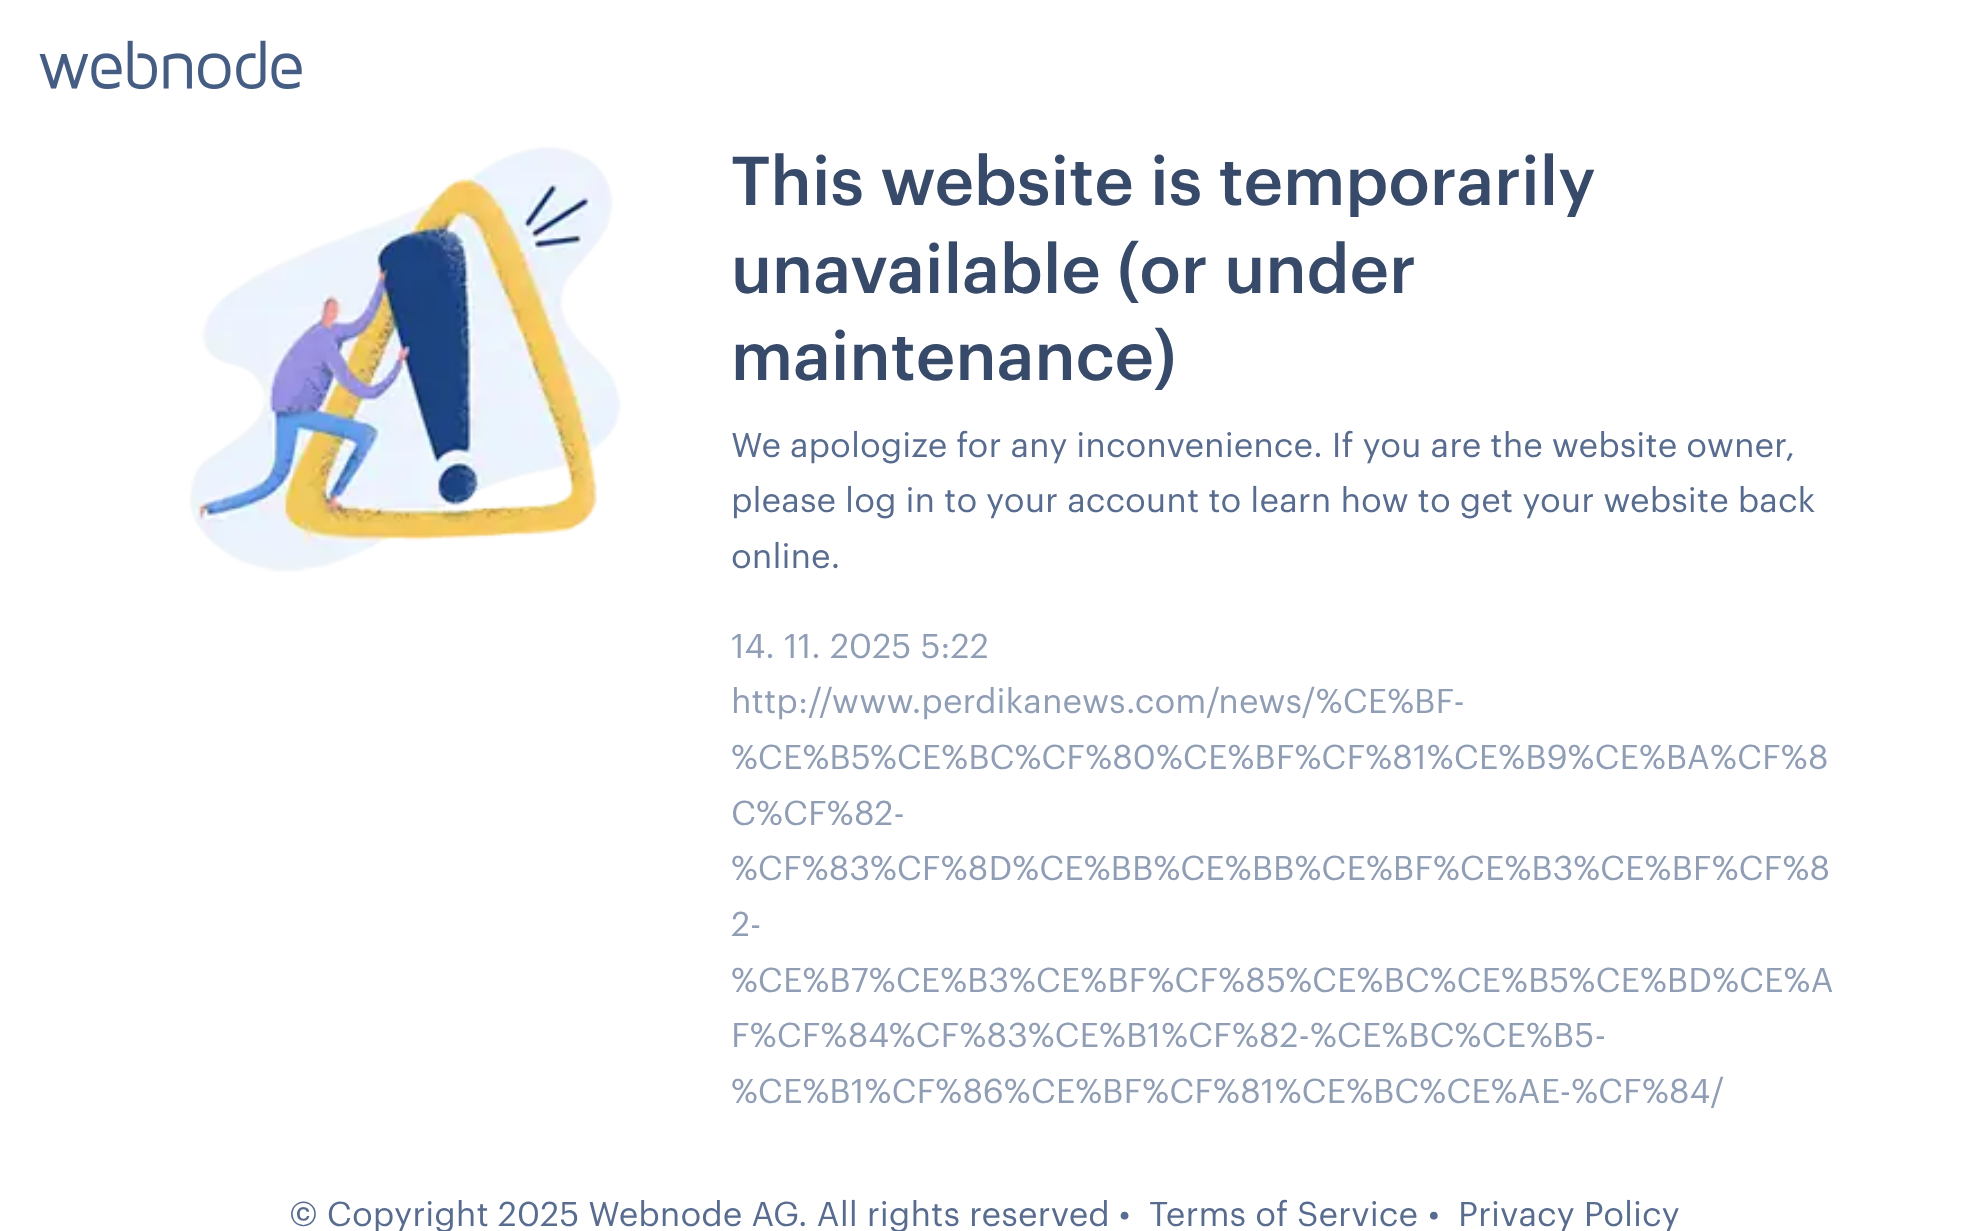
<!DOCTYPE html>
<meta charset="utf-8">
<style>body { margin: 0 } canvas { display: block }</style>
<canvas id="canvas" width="1968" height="1231"></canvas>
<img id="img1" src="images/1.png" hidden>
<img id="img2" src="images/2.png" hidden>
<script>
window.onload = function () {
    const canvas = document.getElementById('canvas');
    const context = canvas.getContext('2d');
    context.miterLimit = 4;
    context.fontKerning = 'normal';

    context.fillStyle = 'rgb(255, 255, 255)';
    context.fillRect(0, 0, 1968, 1231);
    context.drawImage(document.getElementById('img1'), 39, 40, 263, 50);
    context.drawImage(document.getElementById('img2'), 189, 146, 432, 426);
    context.font = '500 67.5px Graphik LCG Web';
    context.fillStyle = 'rgb(55, 74, 105)';
    context.fillText('This website is temporarily', 731, 205);
    context.fillText('unavailable (or under', 731, 293);
    context.fillText('maintenance)', 731, 380);
    context.font = '33.75px Graphik LCG Web';
    context.fillStyle = 'rgb(88, 108, 143)';
    context.fillText('We apologize for any inconvenience. If you are the website owner,', 731, 457);
    context.fillText('please log in to your account to learn how to get your website back', 731, 512);
    context.fillText('online.', 731, 568);
    context.fillStyle = 'rgb(143, 157, 181)';
    context.fillText('14. 11. 2025 5:22', 731, 658);
    context.fillText('http://www.perdikanews.com/news/%CE%BF-', 731, 713);
    context.fillText('%CE%B5%CE%BC%CF%80%CE%BF%CF%81%CE%B9%CE%BA%CF%8', 731, 769);
    context.fillText('C%CF%82-', 731, 825);
    context.fillText('%CF%83%CF%8D%CE%BB%CE%BB%CE%BF%CE%B3%CE%BF%CF%8', 731, 880);
    context.fillText('2-', 731, 936);
    context.fillText('%CE%B7%CE%B3%CE%BF%CF%85%CE%BC%CE%B5%CE%BD%CE%A', 731, 992);
    context.fillText('F%CF%84%CF%83%CE%B1%CF%82-%CE%BC%CE%B5-', 731, 1047);
    context.fillText('%CE%B1%CF%86%CE%BF%CF%81%CE%BC%CE%AE-%CF%84/', 731, 1103);
    context.fillStyle = 'rgb(88, 108, 143)';
    context.fillText('© Copyright 2025 Webnode AG. All rights reserved •', 289, 1226);
    context.fillText('Terms of Service', 1149, 1226);
    context.fillText('•', 1428, 1226);
    context.fillText('Privacy Policy', 1458, 1226);
};
</script>
